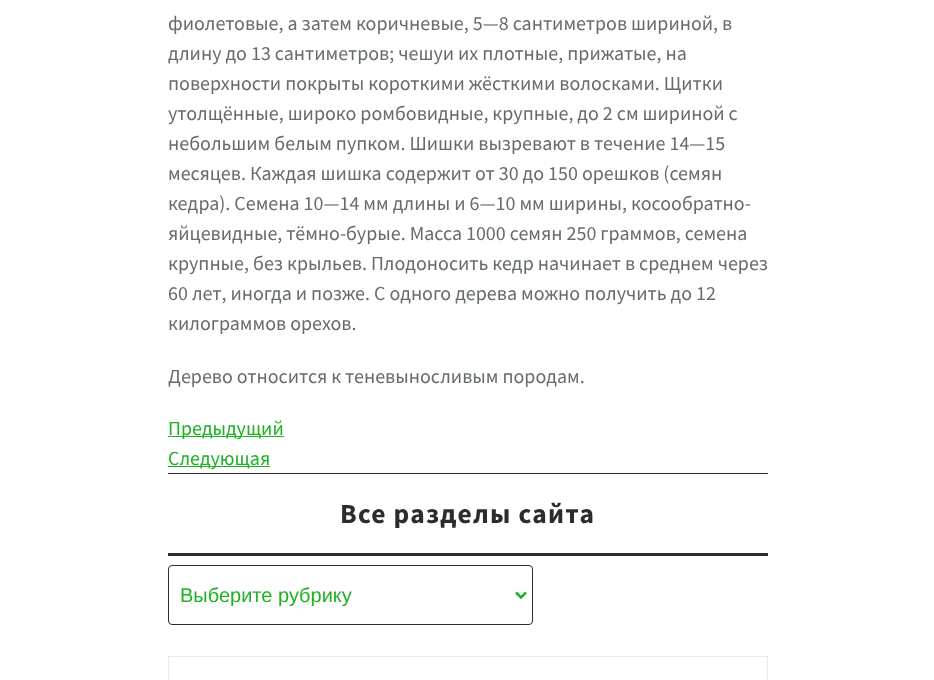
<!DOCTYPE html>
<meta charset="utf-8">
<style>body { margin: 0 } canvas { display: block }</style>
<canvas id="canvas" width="934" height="680"></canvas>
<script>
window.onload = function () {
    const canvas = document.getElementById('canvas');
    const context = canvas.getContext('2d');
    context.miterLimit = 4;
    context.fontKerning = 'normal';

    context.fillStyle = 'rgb(255, 255, 255)';
    context.fillRect(0, 0, 934, 680);
    context.fillStyle = 'rgb(31, 177, 37)';
    context.fillRect(168, 436, 116, 1);
    context.fillRect(168, 466, 102, 1);
    context.fillStyle = 'rgb(44, 44, 44)';
    context.fillRect(168, 473, 600, 1);
    context.fillRect(168, 553, 600, 3);
    context.beginPath();
    context.roundRect(168.5, 565.5, 364, 59, 3.5);
    context.strokeStyle = 'rgb(44, 44, 44)';
    context.stroke();
    context.beginPath();
    context.moveTo(516, 592.5);
    context.lineTo(521, 597.5);
    context.lineTo(526, 592.5);
    context.strokeStyle = 'rgb(31, 177, 37)';
    context.lineWidth = 2.5;
    context.stroke();
    context.strokeStyle = 'rgb(229, 234, 236)';
    context.lineWidth = 1;
    context.strokeRect(168.5, 656.5, 599, 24);
    context.font = '20px Source Sans Pro';
    context.fillStyle = 'rgb(102, 108, 110)';
    context.fillText('фиолетовые, а затем коричневые, 5—8 сантиметров шириной, в', 168, 30);
    context.fillText('длину до 13 сантиметров; чешуи их плотные, прижатые, на', 168, 60);
    context.fillText('поверхности покрыты короткими жёсткими волосками. Щитки', 168, 90);
    context.fillText('утолщённые, широко ромбовидные, крупные, до 2 см шириной с', 168, 120);
    context.fillText('небольшим белым пупком. Шишки вызревают в течение 14—15', 168, 150);
    context.fillText('месяцев. Каждая шишка содержит от 30 до 150 орешков (семян', 168, 180);
    context.fillText('кедра). Семена 10—14 мм длины и 6—10 мм ширины, косообратно-', 168, 210);
    context.fillText('яйцевидные, тёмно-бурые. Масса 1000 семян 250 граммов, семена', 168, 240);
    context.fillText('крупные, без крыльев. Плодоносить кедр начинает в среднем через', 168, 270);
    context.fillText('60 лет, иногда и позже. С одного дерева можно получить до 12', 168, 300);
    context.fillText('килограммов орехов.', 168, 330);
    context.fillText('Дерево относится к теневыносливым породам.', 168, 383);
    context.fillStyle = 'rgb(31, 177, 37)';
    context.fillText('Предыдущий', 168, 435);
    context.fillText('Следующая', 168, 465);
    context.letterSpacing = '1.25px';
    context.font = 'bold 27.5px Source Sans Pro';
    context.fillStyle = 'rgb(44, 44, 44)';
    context.fillText('Все разделы сайта', 340, 523);
    context.save();
    context.beginPath();
    context.rect(180, 583, 325, 23);
    context.clip();
    context.letterSpacing = '0px';
    context.font = '20px Liberation Sans';
    context.fillStyle = 'rgb(31, 177, 37)';
    context.fillText('Выберите рубрику', 180, 602);
    context.restore();
};
</script>
